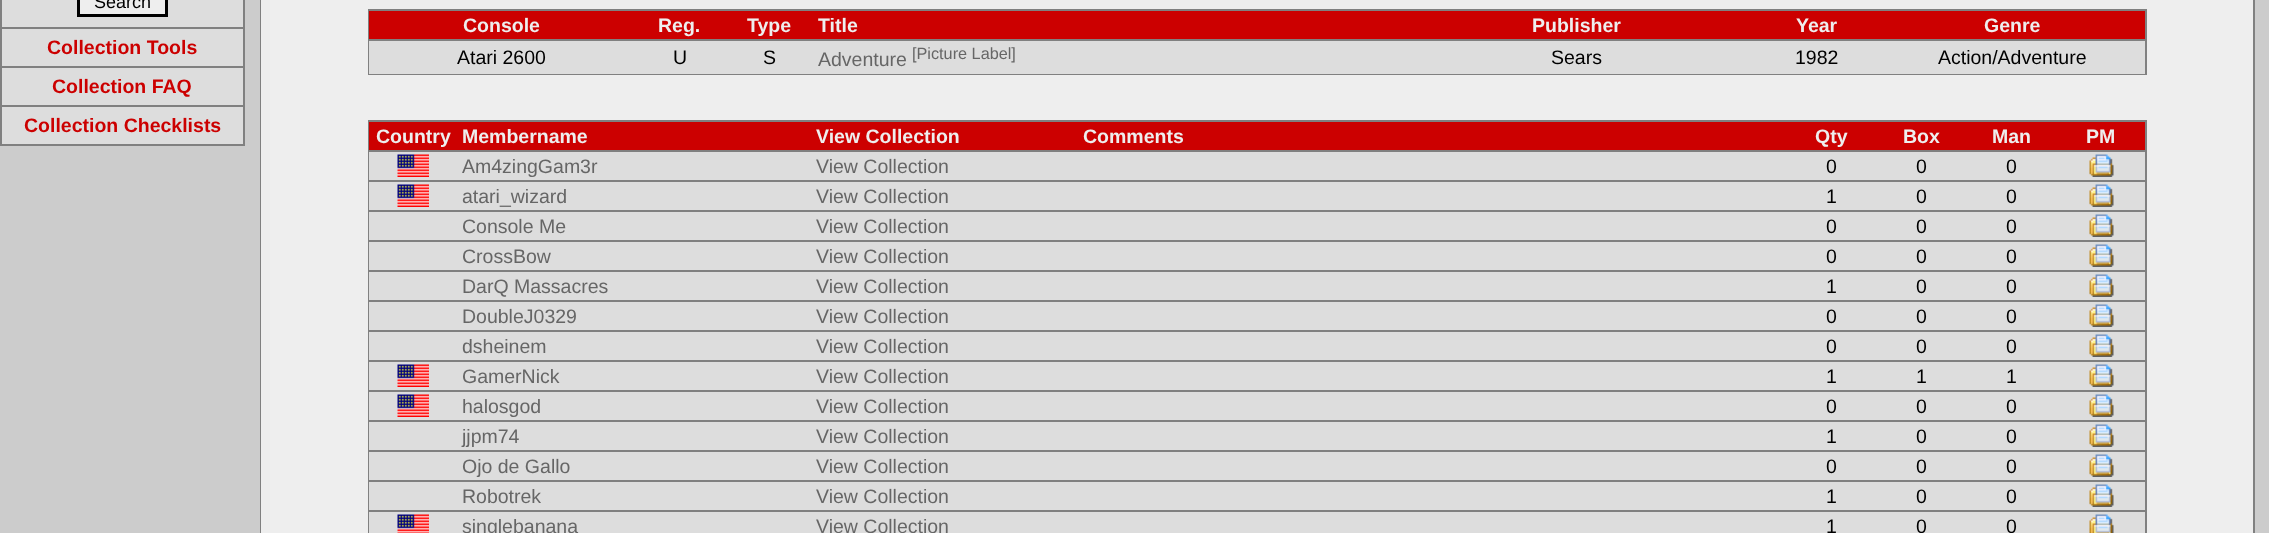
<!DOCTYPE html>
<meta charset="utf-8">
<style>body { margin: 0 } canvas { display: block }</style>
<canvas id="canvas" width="2269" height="533"></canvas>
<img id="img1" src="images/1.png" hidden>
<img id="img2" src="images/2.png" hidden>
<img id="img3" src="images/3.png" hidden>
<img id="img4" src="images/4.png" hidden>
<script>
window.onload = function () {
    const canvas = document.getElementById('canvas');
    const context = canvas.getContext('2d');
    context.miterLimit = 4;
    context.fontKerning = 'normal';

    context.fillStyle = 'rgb(204, 204, 204)';
    context.fillRect(0, 0, 2269, 533);
    context.fillStyle = 'rgb(128, 128, 128)';
    context.fillRect(0, 0, 245, 146);
    context.fillStyle = 'rgb(221, 221, 221)';
    context.fillRect(2, 0, 241, 27);
    context.fillStyle = 'rgb(238, 238, 238)';
    context.beginPath();
    context.rect(78.5, -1.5, 88, 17);
    context.fill();
    context.strokeStyle = 'rgb(0, 0, 0)';
    context.lineWidth = 3;
    context.stroke();
    context.fillStyle = 'rgb(221, 221, 221)';
    context.fillRect(2, 29, 241, 37);
    context.fillRect(2, 68, 241, 37);
    context.fillRect(2, 107, 241, 37);
    context.fillStyle = 'rgb(128, 128, 128)';
    context.fillRect(260, 0, 1995, 533);
    context.fillStyle = 'rgb(238, 238, 238)';
    context.fillRect(261, 0, 1992, 533);
    context.fillStyle = 'rgb(128, 128, 128)';
    context.fillRect(368, 9, 1779, 66);
    context.fillStyle = 'rgb(204, 0, 0)';
    context.fillRect(369, 11, 1776, 28);
    context.fillStyle = 'rgb(221, 221, 221)';
    context.fillRect(369, 41, 1776, 33);
    context.fillStyle = 'rgb(128, 128, 128)';
    context.fillRect(368, 120, 1779, 413);
    context.fillStyle = 'rgb(204, 0, 0)';
    context.fillRect(369, 122, 1776, 28);
    context.fillStyle = 'rgb(221, 221, 221)';
    context.fillRect(369, 152, 1776, 28);
    context.drawImage(document.getElementById('img1'), 397, 154, 32, 23);
    context.drawImage(document.getElementById('img2'), 2089, 154, 25, 23);
    context.fillRect(369, 182, 1776, 28);
    context.drawImage(document.getElementById('img1'), 397, 184, 32, 23);
    context.drawImage(document.getElementById('img2'), 2089, 184, 25, 23);
    context.fillRect(369, 212, 1776, 28);
    context.drawImage(document.getElementById('img2'), 2089, 214, 25, 23);
    context.fillRect(369, 242, 1776, 28);
    context.drawImage(document.getElementById('img2'), 2089, 244, 25, 23);
    context.fillRect(369, 272, 1776, 28);
    context.drawImage(document.getElementById('img2'), 2089, 274, 25, 23);
    context.fillRect(369, 302, 1776, 28);
    context.drawImage(document.getElementById('img2'), 2089, 304, 25, 23);
    context.fillRect(369, 332, 1776, 28);
    context.drawImage(document.getElementById('img2'), 2089, 334, 25, 23);
    context.fillRect(369, 362, 1776, 28);
    context.drawImage(document.getElementById('img1'), 397, 364, 32, 23);
    context.drawImage(document.getElementById('img2'), 2089, 364, 25, 23);
    context.fillRect(369, 392, 1776, 28);
    context.drawImage(document.getElementById('img1'), 397, 394, 32, 23);
    context.drawImage(document.getElementById('img2'), 2089, 394, 25, 23);
    context.fillRect(369, 422, 1776, 28);
    context.drawImage(document.getElementById('img2'), 2089, 424, 25, 23);
    context.fillRect(369, 452, 1776, 28);
    context.drawImage(document.getElementById('img2'), 2089, 454, 25, 23);
    context.fillRect(369, 482, 1776, 28);
    context.drawImage(document.getElementById('img2'), 2089, 484, 25, 23);
    context.fillRect(369, 512, 1776, 21);
    context.drawImage(document.getElementById('img3'), 397, 514, 32, 19);
    context.drawImage(document.getElementById('img4'), 2089, 514, 25, 19);
    context.font = '18px Liberation Sans';
    context.fillStyle = 'rgb(0, 0, 0)';
    context.fillText('Search', 94, 8);
    context.font = 'bold 19.5px Liberation Sans';
    context.fillStyle = 'rgb(204, 0, 0)';
    context.fillText('Collection Tools', 47, 54);
    context.fillText('Collection FAQ', 52, 93);
    context.fillText('Collection Checklists', 24, 132);
    context.fillStyle = 'rgb(238, 238, 238)';
    context.fillText('Console', 463, 32);
    context.fillText('Reg.', 658, 32);
    context.fillText('Type', 747, 32);
    context.fillText('Title', 818, 32);
    context.fillText('Publisher', 1532, 32);
    context.fillText('Year', 1796, 32);
    context.fillText('Genre', 1984, 32);
    context.font = '19.5px Liberation Sans';
    context.fillStyle = 'rgb(0, 0, 0)';
    context.fillText('Atari 2600', 457, 64);
    context.fillText('U', 673, 64);
    context.fillText('S', 763, 64);
    context.fillStyle = 'rgb(102, 102, 102)';
    context.fillText('Adventure', 818, 66);
    context.font = '16.25px Liberation Sans';
    context.fillText('[Picture Label]', 912, 59);
    context.font = '19.5px Liberation Sans';
    context.fillStyle = 'rgb(0, 0, 0)';
    context.fillText('Sears', 1551, 64);
    context.fillText('1982', 1795, 64);
    context.fillText('Action/Adventure', 1938, 64);
    context.font = 'bold 19.5px Liberation Sans';
    context.fillStyle = 'rgb(238, 238, 238)';
    context.fillText('Country', 376, 143);
    context.fillText('Membername', 462, 143);
    context.fillText('View Collection', 816, 143);
    context.fillText('Comments', 1083, 143);
    context.fillText('Qty', 1815, 143);
    context.fillText('Box', 1903, 143);
    context.fillText('Man', 1992, 143);
    context.fillText('PM', 2086, 143);
    context.font = '19.5px Liberation Sans';
    context.fillStyle = 'rgb(102, 102, 102)';
    context.fillText('Am4zingGam3r', 462, 173);
    context.fillText('View Collection', 816, 173);
    context.fillStyle = 'rgb(0, 0, 0)';
    context.fillText('0', 1826, 173);
    context.fillText('0', 1916, 173);
    context.fillText('0', 2006, 173);
    context.fillStyle = 'rgb(102, 102, 102)';
    context.fillText('atari_wizard', 462, 203);
    context.fillText('View Collection', 816, 203);
    context.fillStyle = 'rgb(0, 0, 0)';
    context.fillText('1', 1826, 203);
    context.fillText('0', 1916, 203);
    context.fillText('0', 2006, 203);
    context.fillStyle = 'rgb(102, 102, 102)';
    context.fillText('Console Me', 462, 233);
    context.fillText('View Collection', 816, 233);
    context.fillStyle = 'rgb(0, 0, 0)';
    context.fillText('0', 1826, 233);
    context.fillText('0', 1916, 233);
    context.fillText('0', 2006, 233);
    context.fillStyle = 'rgb(102, 102, 102)';
    context.fillText('CrossBow', 462, 263);
    context.fillText('View Collection', 816, 263);
    context.fillStyle = 'rgb(0, 0, 0)';
    context.fillText('0', 1826, 263);
    context.fillText('0', 1916, 263);
    context.fillText('0', 2006, 263);
    context.fillStyle = 'rgb(102, 102, 102)';
    context.fillText('DarQ Massacres', 462, 293);
    context.fillText('View Collection', 816, 293);
    context.fillStyle = 'rgb(0, 0, 0)';
    context.fillText('1', 1826, 293);
    context.fillText('0', 1916, 293);
    context.fillText('0', 2006, 293);
    context.fillStyle = 'rgb(102, 102, 102)';
    context.fillText('DoubleJ0329', 462, 323);
    context.fillText('View Collection', 816, 323);
    context.fillStyle = 'rgb(0, 0, 0)';
    context.fillText('0', 1826, 323);
    context.fillText('0', 1916, 323);
    context.fillText('0', 2006, 323);
    context.fillStyle = 'rgb(102, 102, 102)';
    context.fillText('dsheinem', 462, 353);
    context.fillText('View Collection', 816, 353);
    context.fillStyle = 'rgb(0, 0, 0)';
    context.fillText('0', 1826, 353);
    context.fillText('0', 1916, 353);
    context.fillText('0', 2006, 353);
    context.fillStyle = 'rgb(102, 102, 102)';
    context.fillText('GamerNick', 462, 383);
    context.fillText('View Collection', 816, 383);
    context.fillStyle = 'rgb(0, 0, 0)';
    context.fillText('1', 1826, 383);
    context.fillText('1', 1916, 383);
    context.fillText('1', 2006, 383);
    context.fillStyle = 'rgb(102, 102, 102)';
    context.fillText('halosgod', 462, 413);
    context.fillText('View Collection', 816, 413);
    context.fillStyle = 'rgb(0, 0, 0)';
    context.fillText('0', 1826, 413);
    context.fillText('0', 1916, 413);
    context.fillText('0', 2006, 413);
    context.fillStyle = 'rgb(102, 102, 102)';
    context.fillText('jjpm74', 462, 443);
    context.fillText('View Collection', 816, 443);
    context.fillStyle = 'rgb(0, 0, 0)';
    context.fillText('1', 1826, 443);
    context.fillText('0', 1916, 443);
    context.fillText('0', 2006, 443);
    context.fillStyle = 'rgb(102, 102, 102)';
    context.fillText('Ojo de Gallo', 462, 473);
    context.fillText('View Collection', 816, 473);
    context.fillStyle = 'rgb(0, 0, 0)';
    context.fillText('0', 1826, 473);
    context.fillText('0', 1916, 473);
    context.fillText('0', 2006, 473);
    context.fillStyle = 'rgb(102, 102, 102)';
    context.fillText('Robotrek', 462, 503);
    context.fillText('View Collection', 816, 503);
    context.fillStyle = 'rgb(0, 0, 0)';
    context.fillText('1', 1826, 503);
    context.fillText('0', 1916, 503);
    context.fillText('0', 2006, 503);
    context.fillStyle = 'rgb(102, 102, 102)';
    context.fillText('singlebanana', 462, 533);
    context.fillText('View Collection', 816, 533);
    context.fillStyle = 'rgb(0, 0, 0)';
    context.fillText('1', 1826, 533);
    context.fillText('0', 1916, 533);
    context.fillText('0', 2006, 533);
};
</script>
